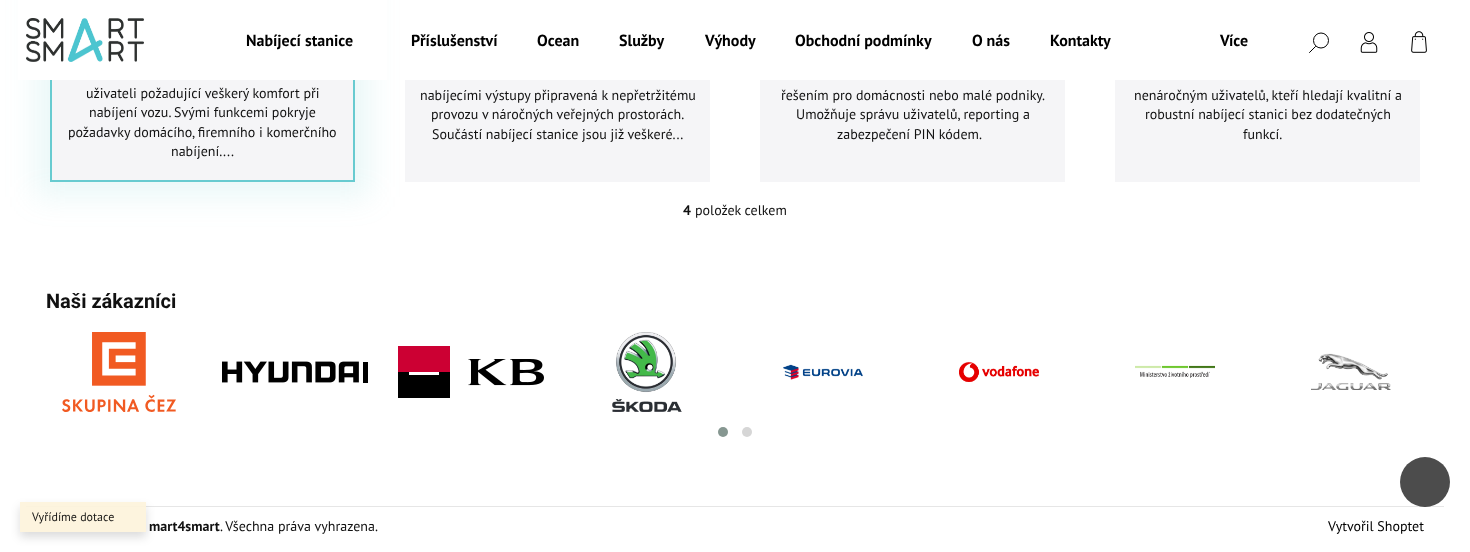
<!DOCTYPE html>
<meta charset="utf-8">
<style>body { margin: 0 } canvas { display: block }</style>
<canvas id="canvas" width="1470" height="552"></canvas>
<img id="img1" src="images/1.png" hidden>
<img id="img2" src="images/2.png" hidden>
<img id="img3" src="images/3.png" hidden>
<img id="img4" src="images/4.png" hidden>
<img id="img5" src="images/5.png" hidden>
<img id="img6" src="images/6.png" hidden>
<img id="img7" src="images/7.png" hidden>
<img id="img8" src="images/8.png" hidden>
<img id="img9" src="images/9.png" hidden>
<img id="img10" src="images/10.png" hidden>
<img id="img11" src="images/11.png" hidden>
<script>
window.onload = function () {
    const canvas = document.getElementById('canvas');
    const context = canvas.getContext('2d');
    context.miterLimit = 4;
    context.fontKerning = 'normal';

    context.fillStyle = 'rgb(255, 255, 255)';
    context.fillRect(0, 0, 1470, 552);
    context.fillStyle = 'rgba(104, 203, 208, 0.14)';
    context.filter = 'blur(15px)';
    context.beginPath();
    context.rect(35, -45, 335, 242);
    context.fill();
    context.filter = 'none';
    context.fillStyle = 'rgb(245, 245, 247)';
    context.fillRect(52, 80, 301, 100);
    context.strokeStyle = 'rgb(104, 203, 208)';
    context.lineWidth = 2;
    context.strokeRect(51, -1, 303, 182);
    context.fillStyle = 'rgb(255, 255, 255)';
    context.fillRect(18, 0, 369, 80);
    context.drawImage(document.getElementById('img1'), 26, 18, 118, 44);
    context.beginPath();
    context.arc(1321, 40.5, 7.5, 0, 2 * Math.PI);
    context.strokeStyle = 'rgb(0, 0, 0)';
    context.lineWidth = 1;
    context.stroke();
    context.beginPath();
    context.moveTo(1315.5, 46.5);
    context.lineTo(1309.5, 52.5);
    context.lineCap = 'round';
    context.stroke();
    context.drawImage(document.getElementById('img2'), 1360, 32, 18, 21);
    context.drawImage(document.getElementById('img3'), 1411, 31, 16, 22);
    context.fillStyle = 'rgb(245, 245, 247)';
    context.fillRect(405, 80, 305, 102);
    context.fillRect(760, 80, 305, 102);
    context.fillRect(1115, 80, 305, 102);
    context.drawImage(document.getElementById('img4'), 62, 332, 114, 80);
    context.drawImage(document.getElementById('img5'), 222, 361, 146, 22);
    context.drawImage(document.getElementById('img6'), 398, 346, 146, 52);
    context.drawImage(document.getElementById('img7'), 612, 332, 70, 80);
    context.drawImage(document.getElementById('img8'), 783, 364, 80, 16);
    context.drawImage(document.getElementById('img9'), 959, 361, 80, 21);
    context.drawImage(document.getElementById('img10'), 1135, 365, 80, 13);
    context.drawImage(document.getElementById('img11'), 1311, 353, 80, 37);
    context.fillStyle = 'rgb(134, 151, 145)';
    context.beginPath();
    context.arc(723, 432, 5, 0, 2 * Math.PI);
    context.fill();
    context.fillStyle = 'rgb(214, 214, 214)';
    context.beginPath();
    context.arc(747, 432, 5, 0, 2 * Math.PI);
    context.fill();
    context.fillStyle = 'rgb(230, 230, 230)';
    context.fillRect(26, 506, 1418, 1);
    context.save();
    context.beginPath();
    context.moveTo(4, 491);
    context.lineTo(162, 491);
    context.lineTo(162, 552);
    context.lineTo(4, 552);
    context.closePath();
    context.moveTo(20, 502);
    context.lineTo(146, 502);
    context.lineTo(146, 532);
    context.lineTo(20, 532);
    context.closePath();
    context.clip('evenodd');
    context.fillStyle = 'rgba(0, 0, 0, 0.14)';
    context.filter = 'blur(5px)';
    context.beginPath();
    context.rect(20, 507, 126, 30);
    context.fill();
    context.filter = 'none';
    context.restore();
    context.fillStyle = 'rgba(253, 243, 218, 0.9)';
    context.fillRect(20, 502, 126, 30);
    context.fillStyle = 'rgba(0, 0, 0, 0.7)';
    context.beginPath();
    context.arc(1425, 482, 25, 0, 2 * Math.PI);
    context.fill();
    context.font = 'bold 16px PT Sans';
    context.fillStyle = 'rgb(0, 0, 0)';
    context.fillText('Nabíjecí stanice', 246, 46);
    context.fillText('Příslušenství', 411, 46);
    context.fillText('Ocean', 537, 46);
    context.fillText('Služby', 619, 46);
    context.fillText('Výhody', 705, 46);
    context.fillText('Obchodní podmínky', 795, 46);
    context.fillText('O nás', 972, 46);
    context.fillText('Kontakty', 1050, 46);
    context.fillText('Více', 1220, 46);
    context.font = '14px PT Sans';
    context.fillStyle = 'rgb(17, 17, 17)';
    context.fillText('uživateli požadující veškerý komfort při', 86, 98);
    context.fillText('nabíjení vozu. Svými funkcemi pokryje', 89, 117);
    context.fillText('požadavky domácího, firemního i komerčního', 68, 137);
    context.fillText('nabíjení....', 171, 156);
    context.fillText('nabíjecími výstupy připravená k nepřetržitému', 420, 100);
    context.fillText('provozu v náročných veřejných prostorách.', 431, 119);
    context.fillText('Součástí nabíjecí stanice jsou již veškeré...', 432, 139);
    context.fillText('řešením pro domácnosti nebo malé podniky.', 781, 100);
    context.fillText('Umožňuje správu uživatelů, reporting a', 796, 119);
    context.fillText('zabezpečení PIN kódem.', 837, 139);
    context.fillText('nenáročným uživatelů, kteří hledají kvalitní a', 1134, 100);
    context.fillText('robustní nabíjecí stanici bez dodatečných', 1145, 119);
    context.fillText('funkcí.', 1243, 139);
    context.font = 'bold 14px PT Sans';
    context.fillText('4', 683, 215);
    context.font = '14px PT Sans';
    context.fillText('položek celkem', 695, 215);
    context.font = 'bold 20px Roboto';
    context.fillText('Naši zákazníci', 46, 308);
    context.font = 'bold 14px PT Sans';
    context.fillText('mart4smart', 149, 531);
    context.font = '14px PT Sans';
    context.fillText('. Všechna práva vyhrazena.', 220, 531);
    context.fillStyle = 'rgb(0, 0, 0)';
    context.fillText('Vytvořil Shoptet', 1328, 531);
    context.font = '12px PT Sans';
    context.fillStyle = 'rgb(25, 24, 22)';
    context.fillText('Vyřídíme dotace', 32, 521);
};
</script>
